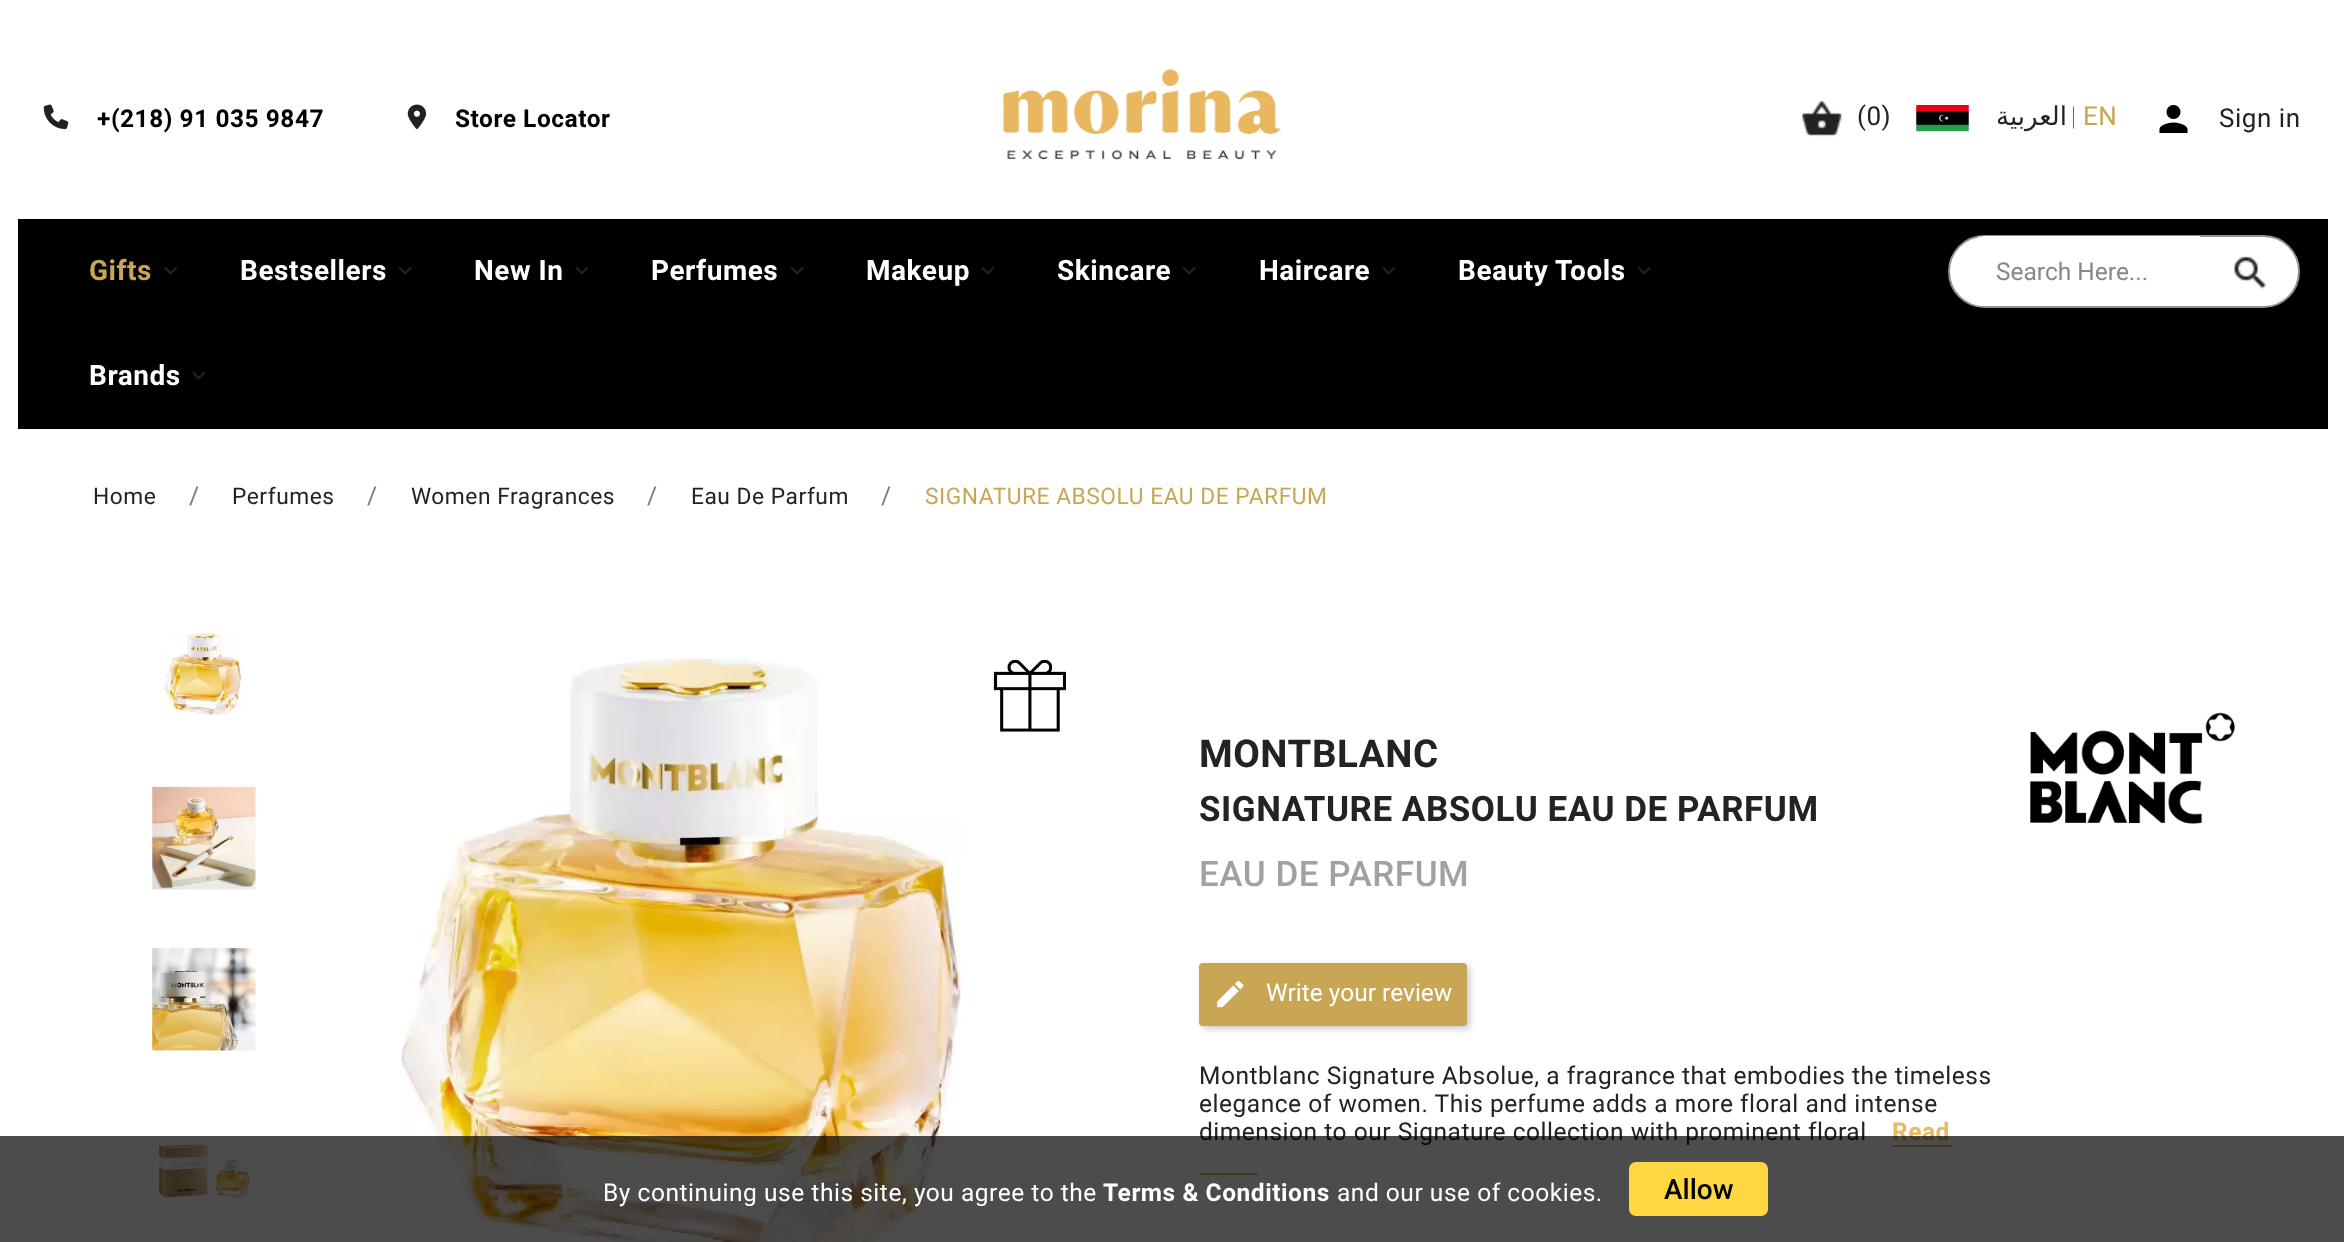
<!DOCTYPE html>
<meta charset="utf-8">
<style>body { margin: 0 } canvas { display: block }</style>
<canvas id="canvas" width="2344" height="1242"></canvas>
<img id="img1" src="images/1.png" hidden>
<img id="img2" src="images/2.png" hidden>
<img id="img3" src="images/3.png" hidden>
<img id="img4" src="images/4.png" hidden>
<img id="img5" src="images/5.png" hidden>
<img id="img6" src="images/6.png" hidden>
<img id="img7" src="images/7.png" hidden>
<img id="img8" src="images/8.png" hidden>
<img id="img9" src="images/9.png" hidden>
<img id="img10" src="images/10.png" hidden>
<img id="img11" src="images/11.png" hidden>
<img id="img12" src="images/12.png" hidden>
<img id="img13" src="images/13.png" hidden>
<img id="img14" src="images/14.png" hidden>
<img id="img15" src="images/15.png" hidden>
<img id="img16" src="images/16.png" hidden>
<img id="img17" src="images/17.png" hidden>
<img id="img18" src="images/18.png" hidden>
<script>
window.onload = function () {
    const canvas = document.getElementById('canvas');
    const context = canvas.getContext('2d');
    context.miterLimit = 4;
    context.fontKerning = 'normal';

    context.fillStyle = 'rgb(255, 255, 255)';
    context.fillRect(0, 0, 2344, 1242);
    context.drawImage(document.getElementById('img1'), 43, 104, 26, 26);
    context.drawImage(document.getElementById('img2'), 407, 104, 20, 25);
    context.drawImage(document.getElementById('img3'), 1002, 69, 279, 91);
    context.drawImage(document.getElementById('img4'), 1802, 101, 40, 36);
    context.drawImage(document.getElementById('img5'), 1916, 105, 53, 27);
    context.drawImage(document.getElementById('img6'), 2159, 105, 29, 28);
    context.fillStyle = 'rgb(0, 0, 0)';
    context.fillRect(18, 219, 2310, 210);
    context.drawImage(document.getElementById('img7'), 164, 267, 13, 8);
    context.drawImage(document.getElementById('img8'), 398, 267, 14, 8);
    context.drawImage(document.getElementById('img9'), 575, 267, 14, 8);
    context.drawImage(document.getElementById('img8'), 790, 267, 14, 8);
    context.drawImage(document.getElementById('img9'), 981, 267, 14, 8);
    context.drawImage(document.getElementById('img8'), 1182, 267, 14, 8);
    context.drawImage(document.getElementById('img7'), 1382, 267, 13, 8);
    context.drawImage(document.getElementById('img8'), 1637, 267, 14, 8);
    context.drawImage(document.getElementById('img7'), 192, 372, 13, 8);
    context.fillStyle = 'rgb(255, 255, 255)';
    context.beginPath();
    context.roundRect(1949, 236, 350, 71, 35.5);
    context.fill();
    context.strokeStyle = 'rgb(146, 146, 146)';
    context.lineWidth = 2;
    context.stroke();
    context.save();
    context.beginPath();
    context.roundRect(1950, 236, 348, 70, 35);
    context.clip();
    context.fillRect(1978, 236, 222, 70);
    context.restore();
    context.drawImage(document.getElementById('img10'), 2233, 255, 34, 34);
    context.drawImage(document.getElementById('img11'), 164, 633, 78, 82);
    context.drawImage(document.getElementById('img12'), 152, 786, 104, 104);
    context.drawImage(document.getElementById('img13'), 152, 947, 104, 104);
    context.drawImage(document.getElementById('img14'), 158, 1144, 92, 54);
    context.drawImage(document.getElementById('img15'), 400, 658, 563, 584);
    context.drawImage(document.getElementById('img16'), 993, 659, 74, 73);
    context.drawImage(document.getElementById('img17'), 2030, 712, 205, 112);
    context.fillStyle = 'rgba(0, 0, 0, 0.2)';
    context.filter = 'blur(3.5px)';
    context.beginPath();
    context.roundRect(1202, 966, 268, 63, 4);
    context.fill();
    context.filter = 'none';
    context.fillStyle = 'rgb(201, 166, 84)';
    context.beginPath();
    context.roundRect(1199, 963, 268, 63, 4);
    context.fill();
    context.drawImage(document.getElementById('img18'), 1217, 980, 27, 28);
    context.fillStyle = 'rgb(230, 185, 101)';
    context.fillRect(1892, 1145, 59, 2);
    context.fillRect(1199, 1173, 59, 2);
    context.letterSpacing = '0.53px';
    context.font = 'bold 24.5px Roboto';
    context.fillStyle = 'rgb(0, 0, 0)';
    context.fillText('+(218) 91 035 9847', 97, 127);
    context.fillText('Store Locator', 455, 127);
    context.font = '26px Roboto';
    context.fillStyle = 'rgb(35, 35, 35)';
    context.fillText('(0)', 1857, 125);
    context.direction = 'rtl';
    context.font = '26px DejaVu Sans';
    context.fillText('العربية', 2067, 125);
    context.direction = 'ltr';
    context.font = '100 26px Roboto';
    context.fillText('|', 2071, 125);
    context.font = '26px Roboto';
    context.fillStyle = 'rgb(201, 166, 84)';
    context.fillText('EN', 2083, 125);
    context.fillStyle = 'rgb(35, 35, 35)';
    context.fillText('Sign in', 2219, 127);
    context.font = 'bold 28px Roboto';
    context.fillStyle = 'rgb(201, 166, 84)';
    context.fillText('Gifts', 89, 280);
    context.fillStyle = 'rgb(255, 255, 255)';
    context.fillText('Bestsellers', 240, 280);
    context.fillText('New In', 474, 280);
    context.fillText('Perfumes', 651, 280);
    context.fillText('Makeup', 866, 280);
    context.fillText('Skincare', 1057, 280);
    context.fillText('Haircare', 1259, 280);
    context.fillText('Beauty Tools', 1458, 280);
    context.fillText('Brands', 89, 385);
    context.letterSpacing = '0px';
    context.font = '24.5px Roboto';
    context.fillStyle = 'rgb(136, 136, 136)';
    context.fillText('Search Here...', 1996, 280);
    context.letterSpacing = '0.53px';
    context.font = '22.75px Roboto';
    context.fillStyle = 'rgb(35, 35, 35)';
    context.fillText('Home', 93, 504);
    context.font = '24.5px Roboto';
    context.fillStyle = 'rgb(122, 122, 122)';
    context.fillText('/', 189, 504);
    context.font = '22.75px Roboto';
    context.fillStyle = 'rgb(35, 35, 35)';
    context.fillText('Perfumes', 232, 504);
    context.font = '24.5px Roboto';
    context.fillStyle = 'rgb(122, 122, 122)';
    context.fillText('/', 367, 504);
    context.font = '22.75px Roboto';
    context.fillStyle = 'rgb(35, 35, 35)';
    context.fillText('Women Fragrances', 411, 504);
    context.font = '24.5px Roboto';
    context.fillStyle = 'rgb(122, 122, 122)';
    context.fillText('/', 647, 504);
    context.font = '22.75px Roboto';
    context.fillStyle = 'rgb(35, 35, 35)';
    context.fillText('Eau De Parfum', 691, 504);
    context.font = '24.5px Roboto';
    context.fillStyle = 'rgb(122, 122, 122)';
    context.fillText('/', 881, 504);
    context.font = '22.75px Roboto';
    context.fillStyle = 'rgb(201, 166, 84)';
    context.fillText('SIGNATURE ABSOLU EAU DE PARFUM', 925, 504);
    context.font = 'bold 38.5px Roboto';
    context.fillStyle = 'rgb(35, 35, 35)';
    context.fillText('MONTBLANC', 1199, 767);
    context.font = 'bold 35px Roboto';
    context.fillText('SIGNATURE ABSOLU EAU DE PARFUM', 1199, 821);
    context.font = '500 35px Roboto';
    context.fillStyle = 'rgb(161, 161, 161)';
    context.fillText('EAU DE PARFUM', 1199, 886);
    context.letterSpacing = '0px';
    context.font = '24.5px Roboto';
    context.fillStyle = 'rgb(255, 255, 255)';
    context.fillText('Write your review', 1266, 1001);
    context.letterSpacing = '0.53px';
    context.fillStyle = 'rgb(35, 35, 35)';
    context.fillText('Montblanc Signature Absolue, a fragrance that embodies the timeless', 1199, 1084);
    context.fillText('elegance of women. This perfume adds a more floral and intense', 1199, 1112);
    context.fillText('dimension to our Signature collection with prominent floral', 1199, 1140);
    context.font = 'bold 24.5px Roboto';
    context.fillStyle = 'rgb(230, 185, 101)';
    context.fillText('Read', 1892, 1140);
    context.fillStyle = 'rgba(0, 0, 0, 0.7)';
    context.fillRect(0, 1136, 2344, 106);
    context.font = '24.5px Roboto';
    context.fillStyle = 'rgb(255, 255, 255)';
    context.fillText('By continuing use this site, you agree to the', 603, 1201);
    context.font = 'bold 24.5px Roboto';
    context.fillText('Terms & Conditions', 1103, 1201);
    context.font = '24.5px Roboto';
    context.fillText('and our use of cookies.', 1337, 1201);
    context.fillStyle = 'rgb(255, 215, 65)';
    context.beginPath();
    context.roundRect(1629, 1162, 139, 54, 7);
    context.fill();
    context.letterSpacing = '0px';
    context.font = '500 28px Roboto';
    context.fillStyle = 'rgb(0, 0, 0)';
    context.fillText('Allow', 1664, 1199);
};
</script>
